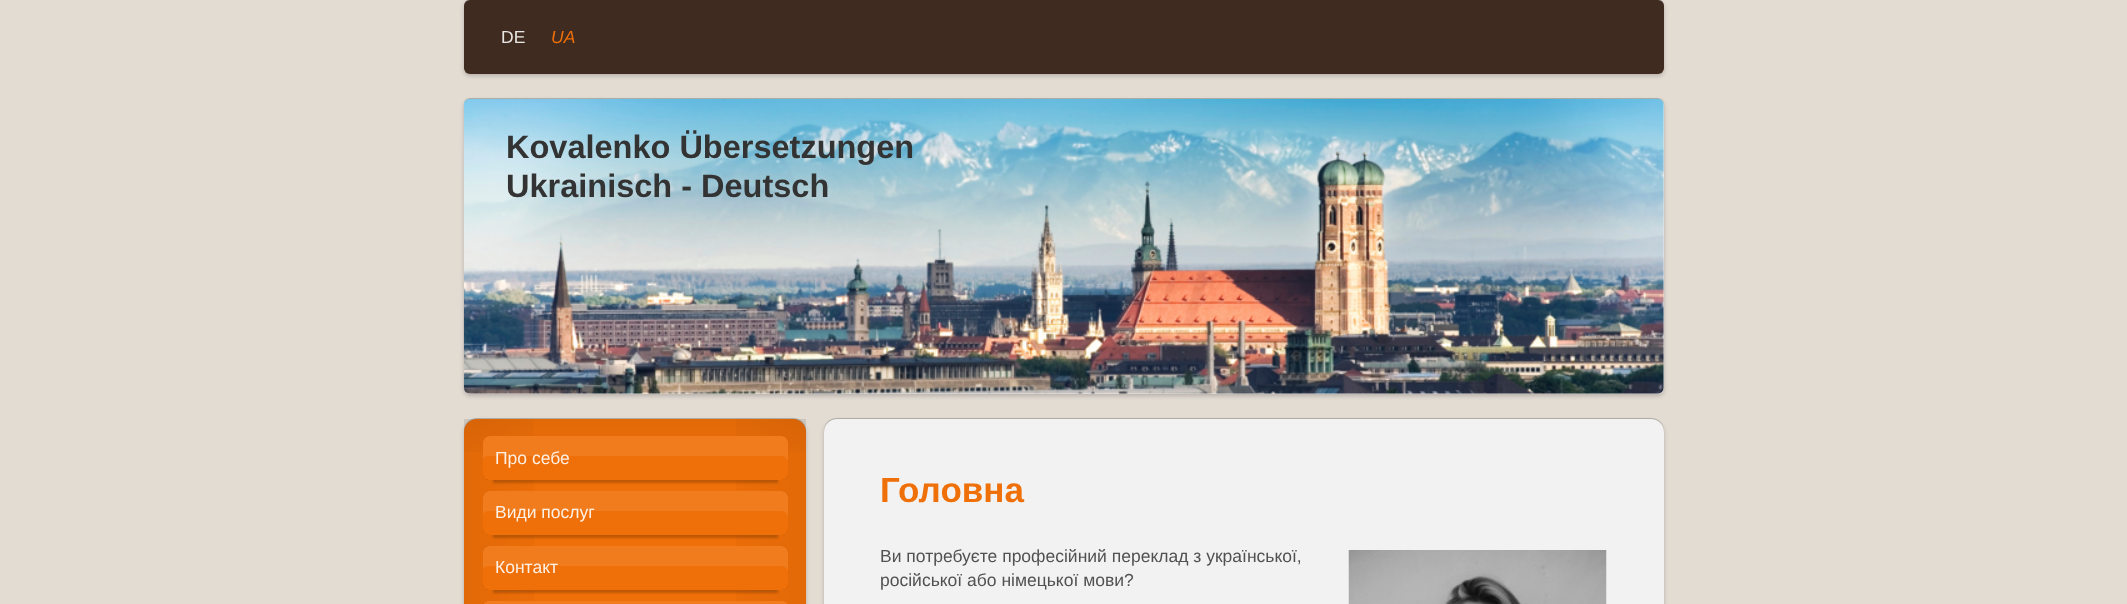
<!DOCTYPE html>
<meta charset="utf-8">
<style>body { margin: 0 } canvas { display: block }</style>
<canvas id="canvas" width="2127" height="604"></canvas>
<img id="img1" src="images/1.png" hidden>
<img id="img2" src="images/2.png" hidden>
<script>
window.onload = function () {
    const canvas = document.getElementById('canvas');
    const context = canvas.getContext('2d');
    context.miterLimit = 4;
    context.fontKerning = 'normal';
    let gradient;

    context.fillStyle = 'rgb(227, 220, 211)';
    context.fillRect(0, 0, 2127, 604);
    context.fillStyle = 'rgba(0, 0, 0, 0.2)';
    context.filter = 'blur(2px)';
    context.beginPath();
    context.roundRect(464, 3, 1200, 73, 6);
    context.fill();
    context.filter = 'none';
    context.filter = 'blur(0.5px)';
    context.beginPath();
    context.roundRect(464, -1, 1200, 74, 6);
    context.fill();
    context.filter = 'none';
    context.fillStyle = 'rgb(63, 43, 31)';
    context.beginPath();
    context.roundRect(464, 0, 1200, 74, 6);
    context.fill();
    context.fillStyle = 'rgba(0, 0, 0, 0.2)';
    context.filter = 'blur(2px)';
    context.beginPath();
    context.roundRect(464, 101, 1200, 295, 6);
    context.fill();
    context.filter = 'none';
    context.filter = 'blur(0.5px)';
    context.beginPath();
    context.roundRect(464, 98, 1200, 295, 6);
    context.fill();
    context.filter = 'none';
    context.fillStyle = 'rgb(238, 238, 238)';
    context.beginPath();
    context.roundRect(464, 99, 1200, 295, 6);
    context.fill();
    context.drawImage(document.getElementById('img1'), 463, 98, 1201, 296);
    context.fillStyle = 'rgba(0, 0, 0, 0.2)';
    context.filter = 'blur(2px)';
    context.beginPath();
    context.roundRect(464, 421, 342, 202, 13);
    context.fill();
    context.filter = 'none';
    context.filter = 'blur(0.5px)';
    context.beginPath();
    context.roundRect(464, 418, 342, 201, 13);
    context.fill();
    context.filter = 'none';
    context.fillStyle = 'rgb(239, 111, 8)';
    context.beginPath();
    context.roundRect(464, 419, 342, 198, 13);
    context.fill();
    gradient = context.createLinearGradient(464, 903, 806, 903);
    gradient.addColorStop(0, 'rgba(0, 0, 0, 0.05)');
    gradient.addColorStop(0.36, 'rgba(0, 0, 0, 0)');
    context.fillStyle = gradient;
    context.fillRect(464, 419, 70, 185);
    gradient = context.createLinearGradient(806, 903, 464, 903);
    gradient.addColorStop(0, 'rgba(0, 0, 0, 0.05)');
    gradient.addColorStop(0.36, 'rgba(0, 0, 0, 0)');
    context.fillStyle = gradient;
    context.fillRect(736, 419, 70, 185);
    gradient = context.createLinearGradient(635, 419, 635, 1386);
    gradient.addColorStop(0, 'rgba(0, 0, 0, 0.05)');
    gradient.addColorStop(0.06, 'rgba(0, 0, 0, 0)');
    context.fillStyle = gradient;
    context.fillRect(464, 419, 342, 33);
    context.fillStyle = 'rgba(0, 0, 0, 0.3)';
    context.filter = 'blur(0.5px)';
    context.beginPath();
    context.roundRect(483, 436, 305, 44, 6);
    context.fill();
    context.filter = 'none';
    context.fillStyle = 'rgba(0, 0, 0, 0.2)';
    context.filter = 'blur(1px)';
    context.beginPath();
    context.rect(493, 459, 285, 24);
    context.fill();
    context.filter = 'none';
    context.fillStyle = 'rgb(239, 111, 8)';
    context.beginPath();
    context.roundRect(483, 436, 305, 44, 6);
    context.fill();
    context.fillStyle = 'rgba(255, 255, 255, 0.09)';
    context.beginPath();
    context.moveTo(489, 456);
    context.lineTo(781, 456);
    context.bezierCurveTo(785, 456, 788, 459, 788, 462);
    context.lineTo(788, 442);
    context.bezierCurveTo(788, 439, 785, 436, 782, 436);
    context.lineTo(489, 436);
    context.bezierCurveTo(486, 436, 483, 439, 483, 442);
    context.lineTo(483, 459);
    context.bezierCurveTo(484, 457, 486, 456, 489, 456);
    context.closePath();
    context.fill();
    context.fillStyle = 'rgba(0, 0, 0, 0.3)';
    context.filter = 'blur(0.5px)';
    context.beginPath();
    context.roundRect(483, 491, 305, 44, 6);
    context.fill();
    context.filter = 'none';
    context.fillStyle = 'rgba(0, 0, 0, 0.2)';
    context.filter = 'blur(1px)';
    context.beginPath();
    context.rect(493, 514, 285, 24);
    context.fill();
    context.filter = 'none';
    context.fillStyle = 'rgb(239, 111, 8)';
    context.beginPath();
    context.roundRect(483, 491, 305, 44, 6);
    context.fill();
    context.fillStyle = 'rgba(255, 255, 255, 0.09)';
    context.beginPath();
    context.moveTo(489, 511);
    context.lineTo(781, 511);
    context.bezierCurveTo(785, 511, 788, 514, 788, 518);
    context.lineTo(788, 497);
    context.bezierCurveTo(788, 494, 785, 491, 782, 491);
    context.lineTo(489, 491);
    context.bezierCurveTo(486, 491, 483, 494, 483, 497);
    context.lineTo(483, 514);
    context.bezierCurveTo(484, 512, 486, 511, 489, 511);
    context.closePath();
    context.fill();
    context.fillStyle = 'rgba(0, 0, 0, 0.3)';
    context.filter = 'blur(0.5px)';
    context.beginPath();
    context.roundRect(483, 546, 305, 44, 6);
    context.fill();
    context.filter = 'none';
    context.fillStyle = 'rgba(0, 0, 0, 0.2)';
    context.filter = 'blur(1px)';
    context.beginPath();
    context.rect(493, 569, 285, 24);
    context.fill();
    context.filter = 'none';
    context.fillStyle = 'rgb(239, 111, 8)';
    context.beginPath();
    context.roundRect(483, 546, 305, 44, 6);
    context.fill();
    context.fillStyle = 'rgba(255, 255, 255, 0.09)';
    context.beginPath();
    context.moveTo(489, 566);
    context.lineTo(781, 566);
    context.bezierCurveTo(785, 566, 788, 569, 788, 572);
    context.lineTo(788, 552);
    context.bezierCurveTo(788, 549, 785, 546, 782, 546);
    context.lineTo(489, 546);
    context.bezierCurveTo(486, 546, 483, 549, 483, 552);
    context.lineTo(483, 569);
    context.bezierCurveTo(484, 567, 486, 566, 489, 566);
    context.closePath();
    context.fill();
    context.fillStyle = 'rgba(0, 0, 0, 0.3)';
    context.filter = 'blur(0.5px)';
    context.beginPath();
    context.roundRect(483, 601, 305, 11, 6);
    context.fill();
    context.filter = 'none';
    context.fillStyle = 'rgb(239, 111, 8)';
    context.beginPath();
    context.roundRect(483, 601, 305, 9, 6);
    context.fill();
    context.fillStyle = 'rgba(255, 255, 255, 0.09)';
    context.beginPath();
    context.moveTo(489, 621);
    context.lineTo(781, 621);
    context.bezierCurveTo(785, 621, 788, 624, 788, 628);
    context.lineTo(788, 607);
    context.bezierCurveTo(788, 604, 785, 601, 782, 601);
    context.lineTo(489, 601);
    context.bezierCurveTo(486, 601, 483, 604, 483, 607);
    context.lineTo(483, 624);
    context.bezierCurveTo(484, 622, 486, 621, 489, 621);
    context.closePath();
    context.fill();
    context.fillStyle = 'rgba(0, 0, 0, 0.2)';
    context.filter = 'blur(2px)';
    context.beginPath();
    context.roundRect(824, 421, 840, 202, 13);
    context.fill();
    context.filter = 'none';
    context.filter = 'blur(0.5px)';
    context.beginPath();
    context.roundRect(824, 418, 840, 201, 13);
    context.fill();
    context.filter = 'none';
    context.fillStyle = 'rgb(242, 242, 242)';
    context.beginPath();
    context.roundRect(824, 419, 840, 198, 13);
    context.fill();
    context.drawImage(document.getElementById('img2'), 1348, 550, 259, 54);
    context.font = '17.5px Liberation Sans';
    context.fillStyle = 'rgb(233, 230, 228)';
    context.fillText('DE', 501, 43);
    context.font = 'italic 17.5px Liberation Sans';
    context.fillStyle = 'rgb(239, 111, 8)';
    context.fillText('UA', 551, 43);
    context.font = 'bold 32.5px Liberation Sans';
    context.fillStyle = 'rgb(51, 51, 51)';
    context.fillText('Kovalenko Übersetzungen', 506, 158);
    context.fillText('Ukrainisch - Deutsch', 506, 197);
    context.font = '17.5px Liberation Sans';
    context.fillStyle = 'rgb(253, 241, 230)';
    context.fillText('Про себе', 495, 464);
    context.fillText('Види послуг', 495, 518);
    context.fillText('Контакт', 495, 573);
    context.font = 'bold 35px Liberation Sans';
    context.fillStyle = 'rgb(239, 111, 8)';
    context.fillText('Головна', 880, 502);
    context.font = '17.5px Liberation Sans';
    context.fillStyle = 'rgb(81, 81, 81)';
    context.fillText('Ви потребуєте професійний переклад з української,', 880, 562);
    context.fillText('російської або німецької мови?', 880, 586);
};
</script>
